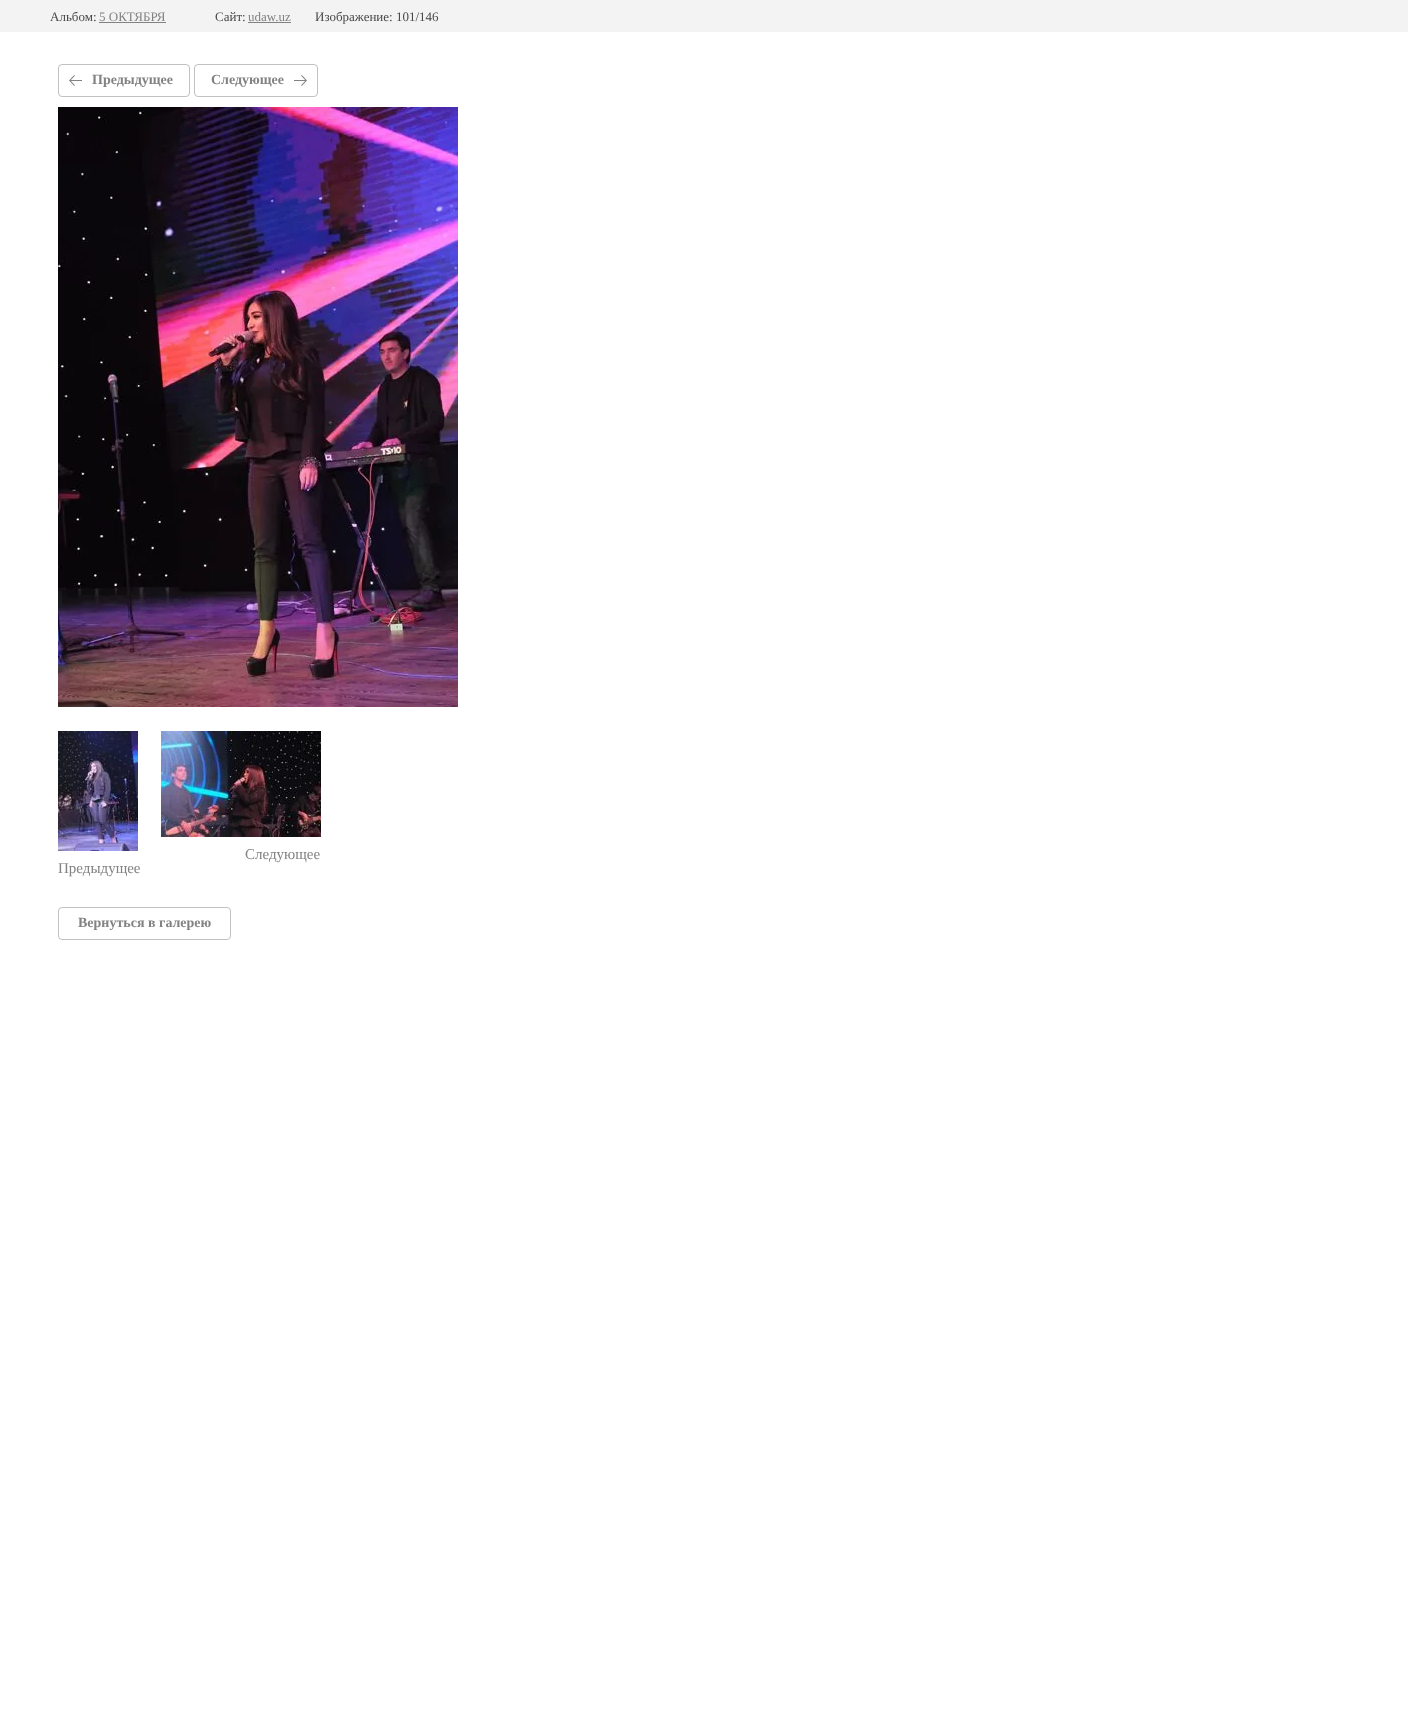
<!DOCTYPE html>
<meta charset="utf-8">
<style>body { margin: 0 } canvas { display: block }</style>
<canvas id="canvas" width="1408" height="1734"></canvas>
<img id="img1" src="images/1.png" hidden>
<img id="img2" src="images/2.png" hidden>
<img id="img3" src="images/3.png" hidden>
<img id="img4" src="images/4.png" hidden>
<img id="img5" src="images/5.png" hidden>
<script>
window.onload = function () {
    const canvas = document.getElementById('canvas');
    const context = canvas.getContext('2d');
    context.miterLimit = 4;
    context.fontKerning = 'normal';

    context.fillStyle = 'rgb(255, 255, 255)';
    context.fillRect(0, 0, 1408, 1734);
    context.fillStyle = 'rgb(243, 243, 243)';
    context.fillRect(0, 0, 1408, 32);
    context.fillStyle = 'rgb(130, 130, 130)';
    context.fillRect(99, 22, 67, 1);
    context.fillRect(248, 22, 43, 1);
    context.beginPath();
    context.roundRect(58.5, 64.5, 131, 32, 3.5);
    context.strokeStyle = 'rgb(193, 193, 193)';
    context.stroke();
    context.drawImage(document.getElementById('img1'), 69, 75, 13, 11);
    context.beginPath();
    context.roundRect(194.5, 64.5, 123, 32, 3.5);
    context.stroke();
    context.drawImage(document.getElementById('img2'), 294, 75, 13, 11);
    context.drawImage(document.getElementById('img3'), 58, 107, 400, 600);
    context.drawImage(document.getElementById('img4'), 161, 731, 160, 106);
    context.drawImage(document.getElementById('img5'), 58, 731, 80, 120);
    context.beginPath();
    context.roundRect(58.5, 907.5, 172, 32, 3.5);
    context.stroke();
    context.font = '13px Liberation Serif';
    context.fillStyle = 'rgb(72, 72, 72)';
    context.fillText('Альбом:', 50, 21);
    context.fillStyle = 'rgb(130, 130, 130)';
    context.fillText('5 ОКТЯБРЯ', 99, 21);
    context.fillStyle = 'rgb(72, 72, 72)';
    context.fillText('Сайт:', 215, 21);
    context.fillStyle = 'rgb(130, 130, 130)';
    context.fillText('udaw.uz', 248, 21);
    context.fillStyle = 'rgb(72, 72, 72)';
    context.fillText('Изображение: 101/146', 315, 21);
    context.font = 'bold 14px Liberation Serif';
    context.fillStyle = 'rgb(130, 130, 130)';
    context.fillText('Предыдущее', 92, 84);
    context.fillText('Следующее', 211, 84);
    context.font = '15px Liberation Serif';
    context.fillText('Следующее', 245, 859);
    context.fillText('Предыдущее', 58, 873);
    context.font = 'bold 14px Liberation Serif';
    context.fillText('Вернуться в галерею', 78, 927);
};
</script>
